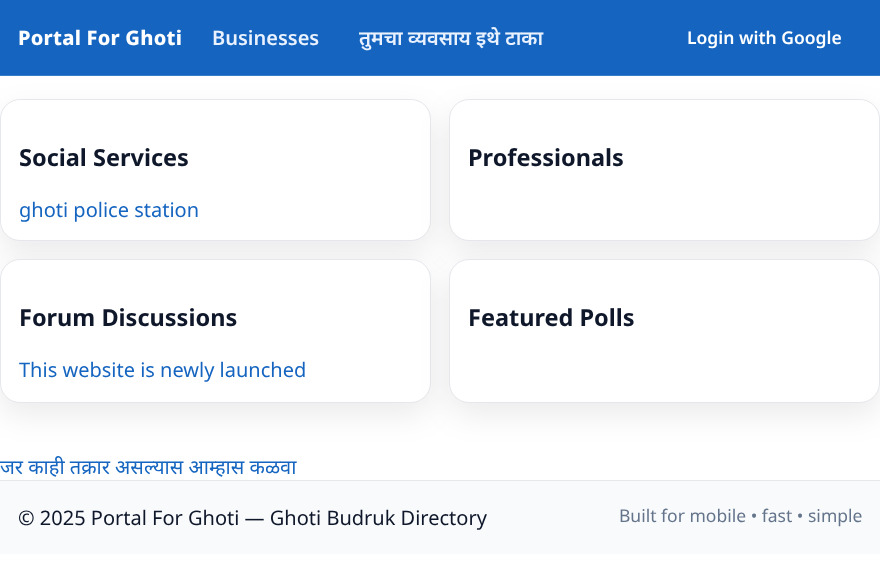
<!DOCTYPE html>
<meta charset="utf-8">
<style>body { margin: 0 } canvas { display: block }</style>
<canvas id="canvas" width="880" height="587"></canvas>
<script>
window.onload = function () {
    const canvas = document.getElementById('canvas');
    const context = canvas.getContext('2d');
    context.miterLimit = 4;
    context.fontKerning = 'normal';

    context.fillStyle = 'rgb(255, 255, 255)';
    context.fillRect(0, 0, 880, 587);
    context.fillStyle = 'rgba(2, 6, 23, 0.08)';
    context.filter = 'blur(15.5px)';
    context.beginPath();
    context.roundRect(0, 111, 431, 143, 20);
    context.fill();
    context.filter = 'none';
    context.fillStyle = 'rgb(255, 255, 255)';
    context.beginPath();
    context.roundRect(0.5, 99.5, 430, 141, 19.5);
    context.fill();
    context.strokeStyle = 'rgb(229, 231, 235)';
    context.stroke();
    context.fillStyle = 'rgba(2, 6, 23, 0.08)';
    context.filter = 'blur(15.5px)';
    context.beginPath();
    context.roundRect(449, 111, 431, 143, 20);
    context.fill();
    context.filter = 'none';
    context.fillStyle = 'rgb(21, 101, 192)';
    context.fillRect(0, 0, 880, 75);
    context.fillStyle = 'rgb(56, 124, 201)';
    context.fillRect(0, 75, 880, 1);
    context.fillStyle = 'rgb(255, 255, 255)';
    context.beginPath();
    context.roundRect(449.5, 99.5, 430, 141, 19.5);
    context.fill();
    context.stroke();
    context.fillStyle = 'rgba(2, 6, 23, 0.08)';
    context.filter = 'blur(15.5px)';
    context.beginPath();
    context.roundRect(0, 271, 431, 144, 20);
    context.fill();
    context.filter = 'none';
    context.fillStyle = 'rgb(255, 255, 255)';
    context.beginPath();
    context.roundRect(0.5, 259.5, 430, 143, 19.5);
    context.fill();
    context.stroke();
    context.fillStyle = 'rgba(2, 6, 23, 0.08)';
    context.filter = 'blur(15.5px)';
    context.beginPath();
    context.roundRect(449, 271, 431, 144, 20);
    context.fill();
    context.filter = 'none';
    context.fillStyle = 'rgb(255, 255, 255)';
    context.beginPath();
    context.roundRect(449.5, 259.5, 430, 143, 19.5);
    context.fill();
    context.stroke();
    context.fillStyle = 'rgb(248, 250, 252)';
    context.fillRect(0, 481, 880, 73);
    context.fillStyle = 'rgb(229, 231, 235)';
    context.fillRect(0, 480, 880, 1);
    context.letterSpacing = '0.25px';
    context.font = '800 20px Noto Sans';
    context.fillStyle = 'rgb(255, 255, 255)';
    context.fillText('Portal For Ghoti', 18, 45);
    context.letterSpacing = '0px';
    context.font = '600 20px Noto Sans';
    context.fillStyle = 'rgb(234, 242, 255)';
    context.fillText('Businesses', 212, 45);
    context.fillText('तुमचा व्यवसाय इथे टाका', 359, 45);
    context.font = '600 17.5px Noto Sans';
    context.fillStyle = 'rgb(255, 255, 255)';
    context.fillText('Login with Google', 687, 44);
    context.font = 'bold 23.5px Noto Sans';
    context.fillStyle = 'rgb(15, 23, 42)';
    context.fillText('Social Services', 19, 166);
    context.font = '20px Noto Sans';
    context.fillStyle = 'rgb(21, 101, 192)';
    context.fillText('ghoti police station', 19, 217);
    context.font = 'bold 23.5px Noto Sans';
    context.fillStyle = 'rgb(15, 23, 42)';
    context.fillText('Professionals', 468, 166);
    context.fillText('Forum Discussions', 19, 326);
    context.font = '20px Noto Sans';
    context.fillStyle = 'rgb(21, 101, 192)';
    context.fillText('This website is newly launched', 19, 377);
    context.font = 'bold 23.5px Noto Sans';
    context.fillStyle = 'rgb(15, 23, 42)';
    context.fillText('Featured Polls', 468, 326);
    context.font = '20px Noto Sans';
    context.fillStyle = 'rgb(21, 101, 192)';
    context.fillText('जर काही तक्रार असल्यास आम्हास कळवा', 0, 474);
    context.fillStyle = 'rgb(15, 23, 42)';
    context.fillText('© 2025 Portal For Ghoti — Ghoti Budruk Directory', 18, 525);
    context.font = '17.5px Noto Sans';
    context.fillStyle = 'rgb(100, 116, 139)';
    context.fillText('Built for mobile • fast • simple', 619, 522);
};
</script>
